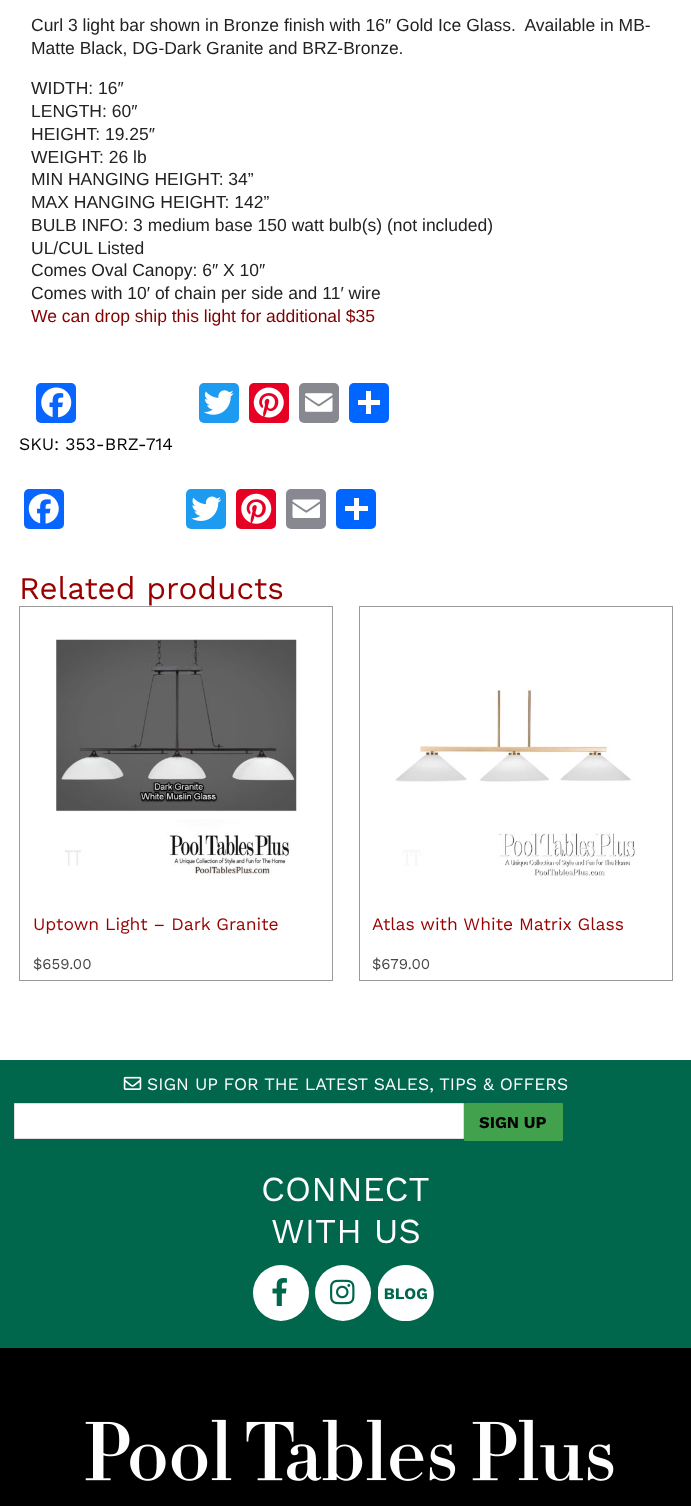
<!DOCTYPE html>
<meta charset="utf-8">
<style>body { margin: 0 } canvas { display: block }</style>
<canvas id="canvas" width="691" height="1506"></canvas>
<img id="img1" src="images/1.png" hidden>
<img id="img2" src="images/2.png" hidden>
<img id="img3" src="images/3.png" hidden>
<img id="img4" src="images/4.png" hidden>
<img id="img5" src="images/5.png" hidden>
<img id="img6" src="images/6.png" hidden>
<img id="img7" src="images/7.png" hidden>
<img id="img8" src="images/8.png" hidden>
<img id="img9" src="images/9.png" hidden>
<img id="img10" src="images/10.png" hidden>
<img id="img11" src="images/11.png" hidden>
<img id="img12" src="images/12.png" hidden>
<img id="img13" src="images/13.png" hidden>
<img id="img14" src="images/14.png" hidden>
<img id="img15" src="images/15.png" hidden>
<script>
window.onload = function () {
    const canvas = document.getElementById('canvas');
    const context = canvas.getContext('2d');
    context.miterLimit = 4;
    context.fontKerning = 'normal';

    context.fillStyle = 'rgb(255, 255, 255)';
    context.fillRect(0, 0, 691, 1506);
    context.fillStyle = 'rgb(8, 102, 255)';
    context.beginPath();
    context.roundRect(36, 383, 40, 40, 5);
    context.fill();
    context.drawImage(document.getElementById('img1'), 41, 387, 31, 31);
    context.fillStyle = 'rgb(29, 155, 240)';
    context.beginPath();
    context.roundRect(199, 383, 40, 40, 5);
    context.fill();
    context.drawImage(document.getElementById('img2'), 204, 390, 30, 25);
    context.fillStyle = 'rgb(230, 0, 35)';
    context.beginPath();
    context.roundRect(249, 383, 40, 40, 5);
    context.fill();
    context.drawImage(document.getElementById('img3'), 253, 387, 31, 31);
    context.fillStyle = 'rgb(136, 137, 144)';
    context.beginPath();
    context.roundRect(299, 383, 40, 40, 5);
    context.fill();
    context.drawImage(document.getElementById('img4'), 305, 393, 28, 19);
    context.fillStyle = 'rgb(1, 102, 255)';
    context.beginPath();
    context.roundRect(349, 383, 40, 40, 5);
    context.fill();
    context.fillStyle = 'rgb(255, 255, 255)';
    context.fillRect(366, 391, 5, 23);
    context.fillRect(358, 400, 22, 5);
    context.fillStyle = 'rgb(8, 102, 255)';
    context.beginPath();
    context.roundRect(24, 489, 40, 40, 5);
    context.fill();
    context.drawImage(document.getElementById('img5'), 28, 493, 31, 31);
    context.fillStyle = 'rgb(29, 155, 240)';
    context.beginPath();
    context.roundRect(186, 489, 40, 40, 5);
    context.fill();
    context.drawImage(document.getElementById('img6'), 191, 496, 31, 25);
    context.fillStyle = 'rgb(230, 0, 35)';
    context.beginPath();
    context.roundRect(236, 489, 40, 40, 5);
    context.fill();
    context.drawImage(document.getElementById('img7'), 241, 493, 31, 31);
    context.fillStyle = 'rgb(136, 137, 144)';
    context.beginPath();
    context.roundRect(286, 489, 40, 40, 5);
    context.fill();
    context.drawImage(document.getElementById('img8'), 292, 499, 28, 19);
    context.fillStyle = 'rgb(1, 102, 255)';
    context.beginPath();
    context.roundRect(336, 489, 40, 40, 5);
    context.fill();
    context.fillStyle = 'rgb(255, 255, 255)';
    context.fillRect(354, 498, 5, 22);
    context.fillRect(345, 506, 23, 5);
    context.strokeStyle = 'rgb(155, 155, 155)';
    context.strokeRect(19.5, 606.5, 313, 374);
    context.drawImage(document.getElementById('img9'), 56, 639, 241, 236);
    context.strokeRect(359.5, 606.5, 313, 374);
    context.drawImage(document.getElementById('img10'), 395, 688, 240, 192);
    context.fillStyle = 'rgb(0, 102, 76)';
    context.fillRect(0, 1060, 691, 288);
    context.drawImage(document.getElementById('img11'), 123, 1076, 19, 14);
    context.fillStyle = 'rgb(255, 255, 255)';
    context.beginPath();
    context.rect(14.5, 1103.5, 449, 35);
    context.fill();
    context.strokeStyle = 'rgb(221, 221, 221)';
    context.stroke();
    context.fillStyle = 'rgb(65, 161, 76)';
    context.beginPath();
    context.roundRect(464, 1103, 99, 38, 1);
    context.fill();
    context.fillStyle = 'rgb(255, 255, 255)';
    context.beginPath();
    context.arc(281, 1293, 28, 0, 2 * Math.PI);
    context.fill();
    context.drawImage(document.getElementById('img12'), 272, 1278, 15, 28);
    context.beginPath();
    context.arc(343, 1293, 28, 0, 2 * Math.PI);
    context.fill();
    context.drawImage(document.getElementById('img13'), 330, 1279, 25, 26);
    context.drawImage(document.getElementById('img14'), 378, 1265, 56, 56);
    context.fillStyle = 'rgb(0, 0, 0)';
    context.fillRect(0, 1348, 691, 158);
    context.drawImage(document.getElementById('img15'), 85, 1419, 529, 62);
    context.font = '17.5px Liberation Sans';
    context.fillStyle = 'rgb(34, 34, 34)';
    context.fillText('Curl 3 light bar shown in Bronze finish with 16″ Gold Ice Glass.  Available in MB-', 31, 31);
    context.fillText('Matte Black, DG-Dark Granite and BRZ-Bronze.', 31, 54);
    context.fillText('WIDTH: 16″', 31, 94);
    context.fillText('LENGTH: 60″', 31, 117);
    context.fillText('HEIGHT: 19.25″', 31, 140);
    context.fillText('WEIGHT: 26 lb', 31, 163);
    context.fillText('MIN HANGING HEIGHT: 34”', 31, 185);
    context.fillText('MAX HANGING HEIGHT: 142”', 31, 208);
    context.fillText('BULB INFO: 3 medium base 150 watt bulb(s) (not included)', 31, 231);
    context.fillText('UL/CUL Listed', 31, 254);
    context.fillText('Comes Oval Canopy: 6″ X 10″', 31, 276);
    context.fillText('Comes with 10′ of chain per side and 11′ wire', 31, 299);
    context.fillStyle = 'rgb(128, 0, 0)';
    context.fillText('We can drop ship this light for additional $35', 31, 322);
    context.font = '17.5px Work Sans';
    context.fillStyle = 'rgb(0, 0, 0)';
    context.fillText('SKU: 353-BRZ-714', 19, 450);
    context.font = '31.5px Work Sans';
    context.fillStyle = 'rgb(153, 0, 0)';
    context.fillText('Related products', 19, 599);
    context.font = '17.5px Work Sans';
    context.fillText('Uptown Light – Dark Granite', 33, 930);
    context.font = '15px Work Sans';
    context.fillStyle = 'rgb(71, 71, 71)';
    context.fillText('$659.00', 33, 969);
    context.font = '17.5px Work Sans';
    context.fillStyle = 'rgb(153, 0, 0)';
    context.fillText('Atlas with White Matrix Glass', 372, 930);
    context.font = '15px Work Sans';
    context.fillStyle = 'rgb(71, 71, 71)';
    context.fillText('$679.00', 372, 969);
    context.font = '17.5px Work Sans';
    context.fillStyle = 'rgb(255, 255, 255)';
    context.fillText('SIGN UP FOR THE LATEST SALES, TIPS & OFFERS', 147, 1090);
    context.font = 'bold 16.5px Work Sans';
    context.fillStyle = 'rgb(0, 0, 0)';
    context.fillText('SIGN UP', 479, 1128);
    context.font = '35px Work Sans';
    context.fillStyle = 'rgb(255, 255, 255)';
    context.fillText('CONNECT', 261, 1201);
    context.fillText('WITH US', 271, 1243);
};
</script>
